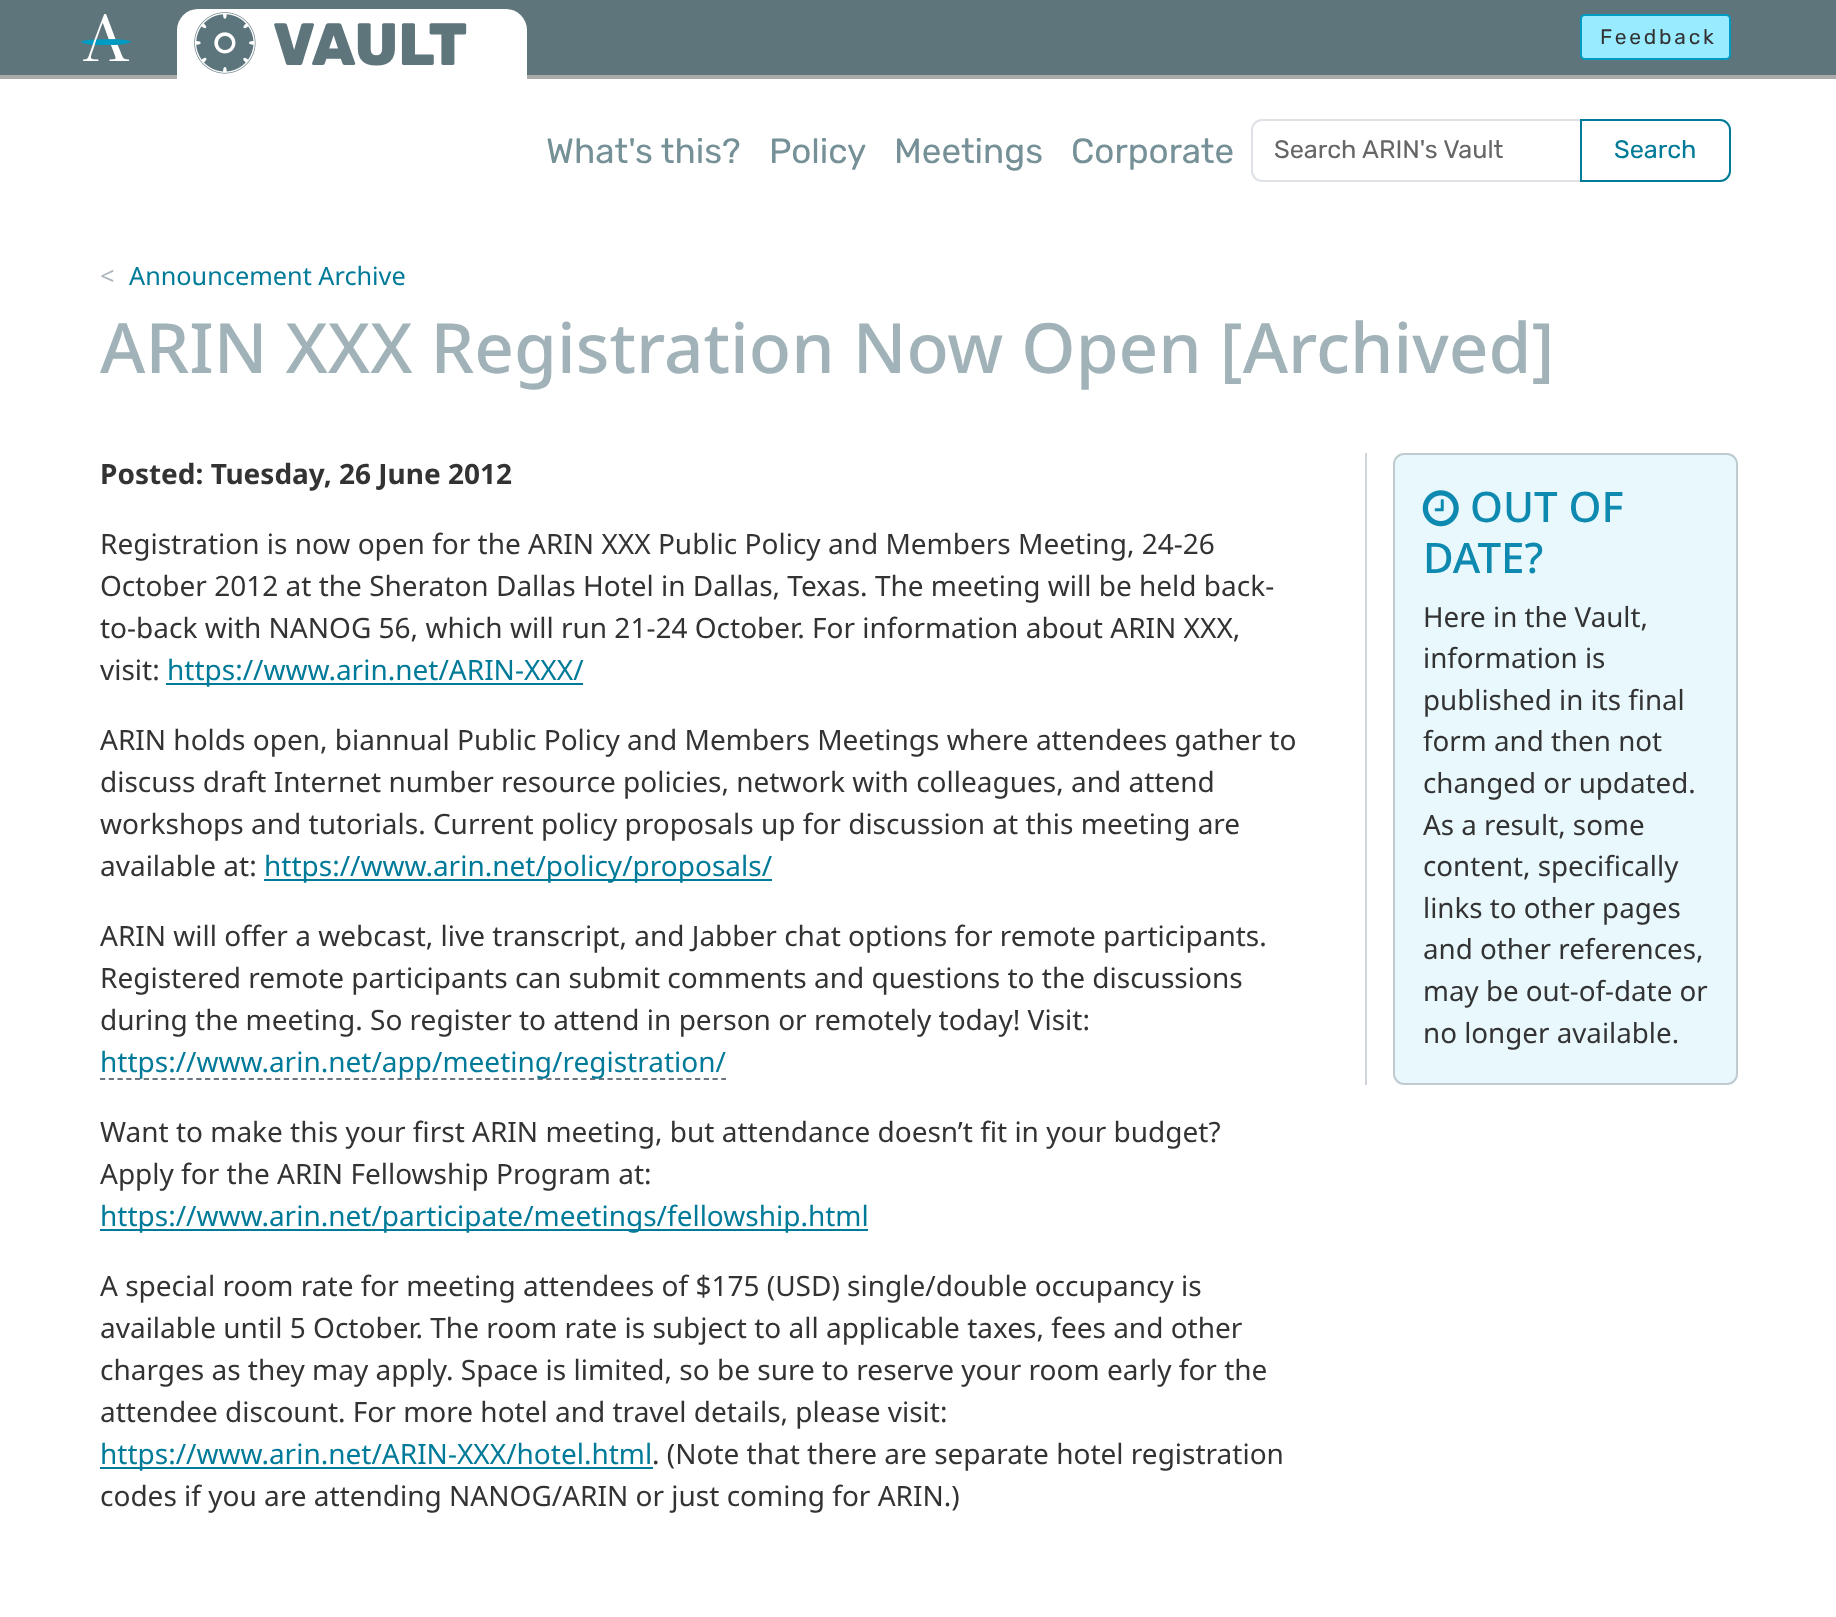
<!DOCTYPE html>
<meta charset="utf-8">
<style>body { margin: 0 } canvas { display: block }</style>
<canvas id="canvas" width="1836" height="1617"></canvas>
<img id="img1" src="images/1.png" hidden>
<img id="img2" src="images/2.png" hidden>
<img id="img3" src="images/3.png" hidden>
<script>
window.onload = function () {
    const canvas = document.getElementById('canvas');
    const context = canvas.getContext('2d');
    context.miterLimit = 4;
    context.fontKerning = 'normal';

    context.fillStyle = 'rgb(255, 255, 255)';
    context.fillRect(0, 0, 1836, 1617);
    context.fillStyle = 'rgb(94, 117, 124)';
    context.fillRect(0, 0, 1836, 75);
    context.fillStyle = 'rgb(170, 170, 170)';
    context.fillRect(0, 75, 1836, 4);
    context.drawImage(document.getElementById('img1'), 81, 14, 50, 47);
    context.fillStyle = 'rgb(255, 255, 255)';
    context.beginPath();
    context.roundRect(177, 9, 350, 70, [21, 21, 0, 0]);
    context.fill();
    context.drawImage(document.getElementById('img2'), 194, 12, 62, 62);
    context.fillStyle = 'rgb(153, 235, 255)';
    context.beginPath();
    context.roundRect(1581, 15, 149, 44, 4);
    context.fill();
    context.strokeStyle = 'rgb(0, 155, 194)';
    context.lineWidth = 2;
    context.stroke();
    context.beginPath();
    context.roundRect(1252, 120, 329, 61, [10, 0, 0, 10]);
    context.strokeStyle = 'rgb(222, 226, 230)';
    context.stroke();
    context.beginPath();
    context.roundRect(1581, 120, 149, 61, [0, 10, 10, 0]);
    context.strokeStyle = 'rgb(0, 122, 153)';
    context.stroke();
    context.fillStyle = 'rgb(0, 122, 153)';
    context.fillRect(166, 683, 417, 2);
    context.fillRect(264, 879, 508, 2);
    context.beginPath();
    context.moveTo(100, 1079);
    context.lineTo(726, 1079);
    context.strokeStyle = 'rgb(108, 117, 125)';
    context.lineWidth = 1.8;
    context.setLineDash([5.25, 3.5]);
    context.stroke();
    context.fillRect(100, 1229, 768, 2);
    context.fillRect(100, 1467, 553, 2);
    context.fillStyle = 'rgb(206, 212, 218)';
    context.fillRect(1365, 453, 2, 632);
    context.fillStyle = 'rgb(233, 248, 253)';
    context.beginPath();
    context.roundRect(1393, 453, 345, 632, 11);
    context.fill();
    context.beginPath();
    context.roundRect(1394, 454, 343, 630, 10);
    context.strokeStyle = 'rgba(0, 0, 0, 0.18)';
    context.lineWidth = 2;
    context.setLineDash([]);
    context.stroke();
    context.drawImage(document.getElementById('img3'), 1422, 490, 37, 37);
    context.font = '800 59.5px Rubik';
    context.fillStyle = 'rgb(94, 117, 124)';
    context.fillText('VAULT', 273, 65);
    context.letterSpacing = '2.75px';
    context.font = '21px Rubik';
    context.fillStyle = 'rgb(51, 51, 51)';
    context.fillText('Feedback', 1600, 44);
    context.letterSpacing = '0px';
    context.font = '35px Rubik';
    context.fillStyle = 'rgb(117, 144, 151)';
    context.fillText('What\'s this?', 546, 163);
    context.fillText('Policy', 769, 163);
    context.fillText('Meetings', 894, 163);
    context.fillText('Corporate', 1071, 163);
    context.font = '25.25px Rubik';
    context.fillStyle = 'rgb(102, 102, 102)';
    context.fillText('Search ARIN\'s Vault', 1274, 158);
    context.fillStyle = 'rgb(0, 122, 153)';
    context.fillText('Search', 1614, 158);
    context.font = '25.25px Noto Sans';
    context.fillStyle = 'rgb(173, 181, 189)';
    context.fillText('<', 100, 285);
    context.fillStyle = 'rgb(0, 122, 153)';
    context.fillText('Announcement Archive', 129, 285);
    context.font = '500 69.3px Noto Sans';
    context.fillStyle = 'rgb(161, 179, 184)';
    context.fillText('ARIN XXX Registration Now Open [Archived]', 100, 373);
    context.font = 'bold 28px Noto Sans';
    context.fillStyle = 'rgb(51, 51, 51)';
    context.fillText('Posted: Tuesday, 26 June 2012', 100, 484);
    context.font = '28px Noto Sans';
    context.fillText('Registration is now open for the ARIN XXX Public Policy and Members Meeting, 24-26', 100, 554);
    context.fillText('October 2012 at the Sheraton Dallas Hotel in Dallas, Texas. The meeting will be held back-', 100, 596);
    context.fillText('to-back with NANOG 56, which will run 21-24 October. For information about ARIN XXX,', 100, 638);
    context.fillText('visit:', 100, 680);
    context.fillStyle = 'rgb(0, 122, 153)';
    context.fillText('https://www.arin.net/ARIN-XXX/', 167, 680);
    context.fillStyle = 'rgb(51, 51, 51)';
    context.fillText('ARIN holds open, biannual Public Policy and Members Meetings where attendees gather to', 100, 750);
    context.fillText('discuss draft Internet number resource policies, network with colleagues, and attend', 100, 792);
    context.fillText('workshops and tutorials. Current policy proposals up for discussion at this meeting are', 100, 834);
    context.fillText('available at:', 100, 876);
    context.fillStyle = 'rgb(0, 122, 153)';
    context.fillText('https://www.arin.net/policy/proposals/', 264, 876);
    context.fillStyle = 'rgb(51, 51, 51)';
    context.fillText('ARIN will offer a webcast, live transcript, and Jabber chat options for remote participants.', 100, 946);
    context.fillText('Registered remote participants can submit comments and questions to the discussions', 100, 988);
    context.fillText('during the meeting. So register to attend in person or remotely today! Visit:', 100, 1030);
    context.fillStyle = 'rgb(0, 122, 153)';
    context.fillText('https://www.arin.net/app/meeting/registration/', 100, 1072);
    context.fillStyle = 'rgb(51, 51, 51)';
    context.fillText('Want to make this your first ARIN meeting, but attendance doesn’t fit in your budget?', 100, 1142);
    context.fillText('Apply for the ARIN Fellowship Program at:', 100, 1184);
    context.fillStyle = 'rgb(0, 122, 153)';
    context.fillText('https://www.arin.net/participate/meetings/fellowship.html', 100, 1226);
    context.fillStyle = 'rgb(51, 51, 51)';
    context.fillText('A special room rate for meeting attendees of $175 (USD) single/double occupancy is', 100, 1296);
    context.fillText('available until 5 October. The room rate is subject to all applicable taxes, fees and other', 100, 1338);
    context.fillText('charges as they may apply. Space is limited, so be sure to reserve your room early for the', 100, 1380);
    context.fillText('attendee discount. For more hotel and travel details, please visit:', 100, 1422);
    context.fillStyle = 'rgb(0, 122, 153)';
    context.fillText('https://www.arin.net/ARIN-XXX/hotel.html', 100, 1464);
    context.fillStyle = 'rgb(51, 51, 51)';
    context.fillText('. (Note that there are separate hotel registration', 652, 1464);
    context.fillText('codes if you are attending NANOG/ARIN or just coming for ARIN.)', 100, 1506);
    context.font = '500 42px Noto Sans';
    context.fillStyle = 'rgb(14, 137, 176)';
    context.fillText('OUT OF', 1470, 522);
    context.fillText('DATE?', 1423, 573);
    context.font = '27.75px Noto Sans';
    context.fillStyle = 'rgb(51, 51, 51)';
    context.fillText('Here in the Vault,', 1423, 627);
    context.fillText('information is', 1423, 668);
    context.fillText('published in its final', 1423, 710);
    context.fillText('form and then not', 1423, 751);
    context.fillText('changed or updated.', 1423, 793);
    context.fillText('As a result, some', 1423, 835);
    context.fillText('content, specifically', 1423, 876);
    context.fillText('links to other pages', 1423, 918);
    context.fillText('and other references,', 1423, 959);
    context.fillText('may be out-of-date or', 1423, 1001);
    context.fillText('no longer available.', 1423, 1043);
};
</script>
